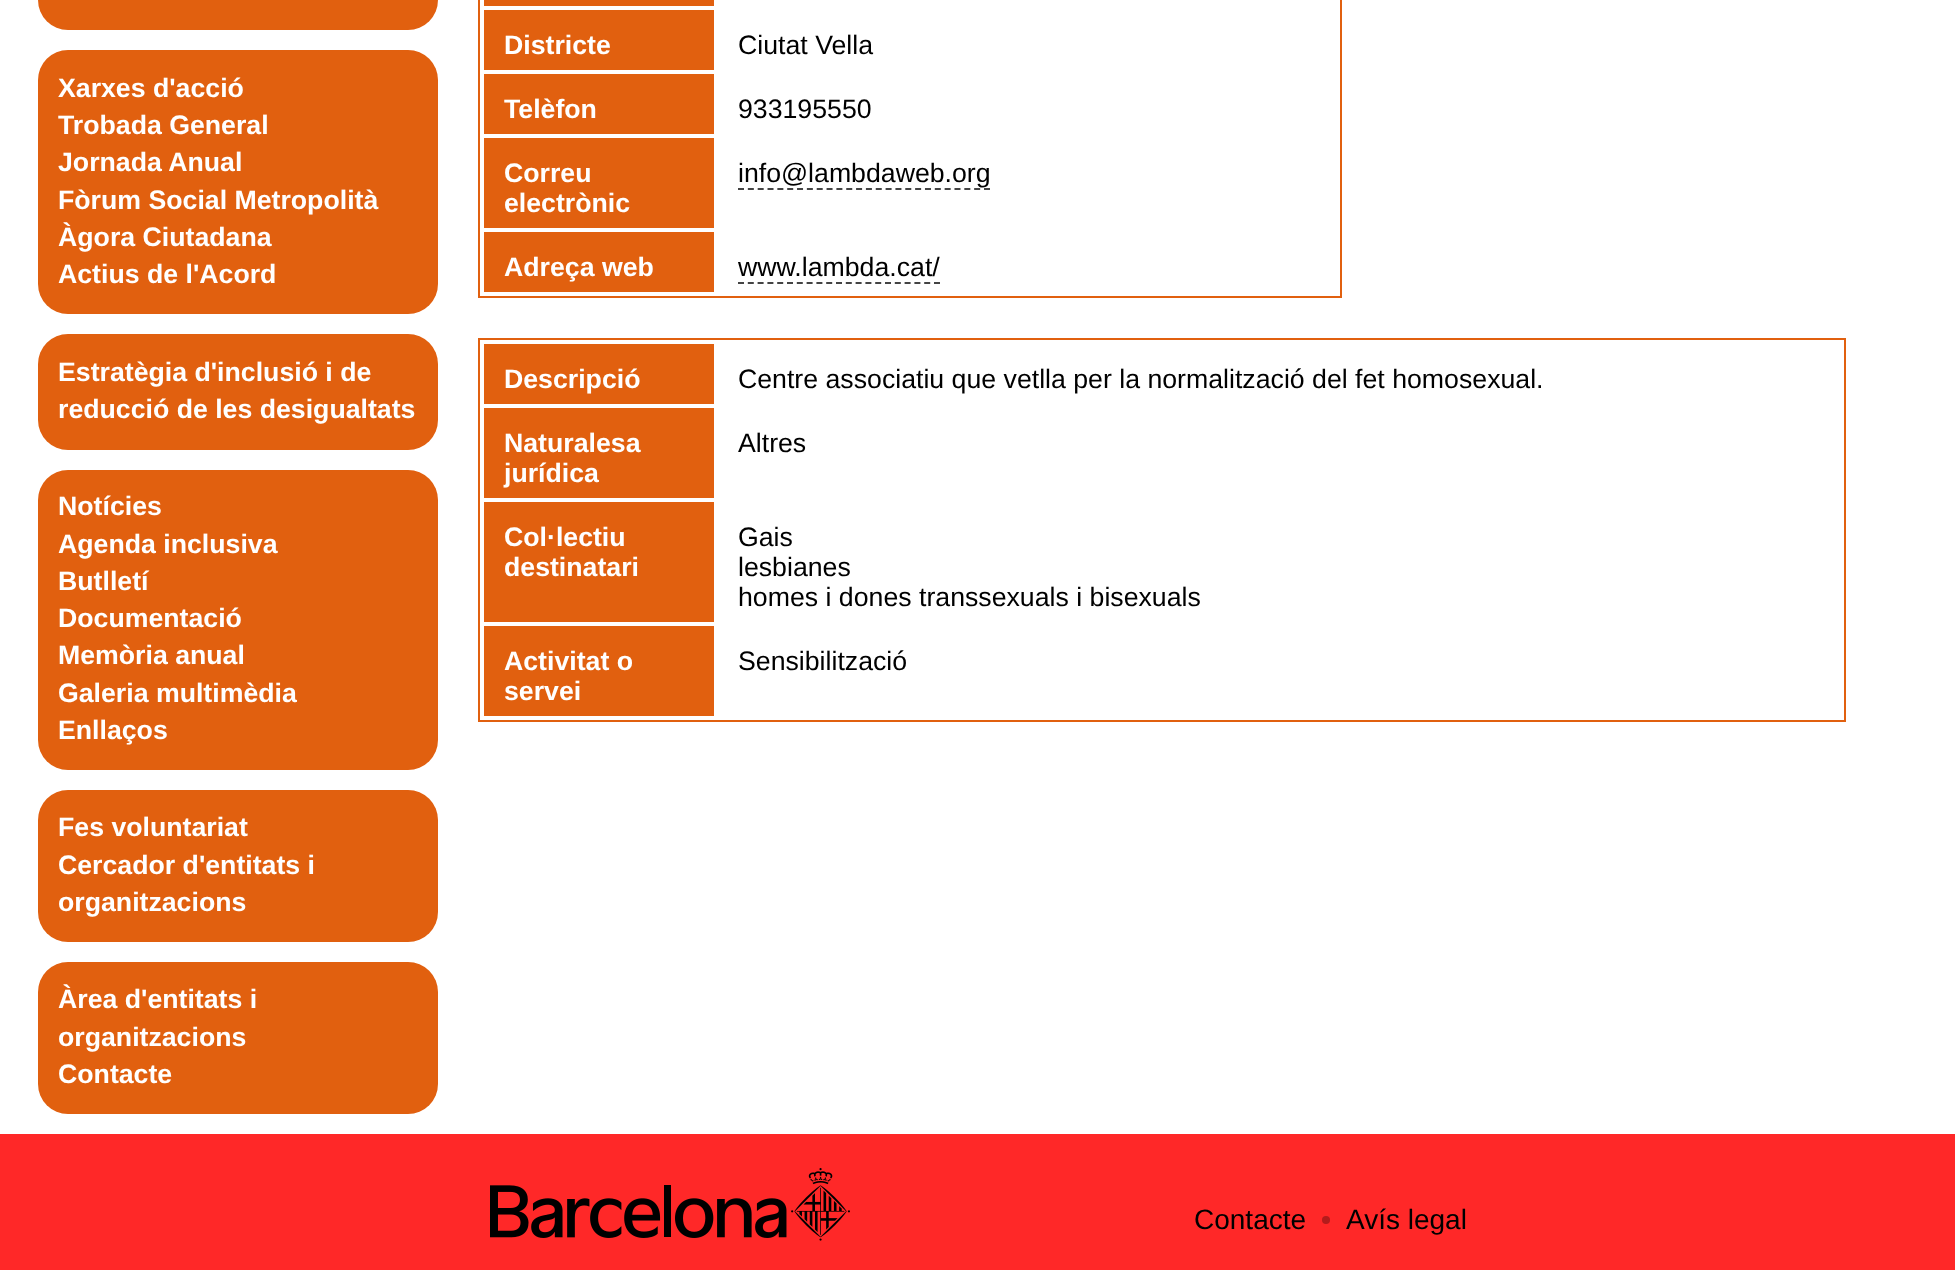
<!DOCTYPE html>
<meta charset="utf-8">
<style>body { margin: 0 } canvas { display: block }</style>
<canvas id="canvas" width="1955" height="1270"></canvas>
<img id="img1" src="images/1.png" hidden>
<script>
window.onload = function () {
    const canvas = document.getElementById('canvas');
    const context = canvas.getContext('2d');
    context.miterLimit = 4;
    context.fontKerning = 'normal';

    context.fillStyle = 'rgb(255, 255, 255)';
    context.fillRect(0, 0, 1955, 1270);
    context.fillStyle = 'rgb(225, 96, 15)';
    context.beginPath();
    context.roundRect(38, -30, 400, 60, 30);
    context.fill();
    context.beginPath();
    context.roundRect(38, 50, 400, 264, 30);
    context.fill();
    context.beginPath();
    context.roundRect(38, 334, 400, 116, 30);
    context.fill();
    context.beginPath();
    context.roundRect(38, 470, 400, 300, 30);
    context.fill();
    context.beginPath();
    context.roundRect(38, 790, 400, 152, 30);
    context.fill();
    context.beginPath();
    context.roundRect(38, 962, 400, 152, 30);
    context.fill();
    context.strokeStyle = 'rgb(225, 96, 15)';
    context.lineWidth = 2;
    context.strokeRect(479, -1, 862, 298);
    context.fillRect(484, 0, 230, 6);
    context.fillRect(484, 10, 230, 60);
    context.fillRect(484, 74, 230, 60);
    context.fillRect(484, 138, 230, 90);
    context.beginPath();
    context.moveTo(738, 189);
    context.lineTo(990, 189);
    context.strokeStyle = 'rgb(68, 68, 68)';
    context.setLineDash([6, 3.84]);
    context.stroke();
    context.fillRect(484, 232, 230, 60);
    context.beginPath();
    context.moveTo(738, 283);
    context.lineTo(940, 283);
    context.setLineDash([6, 3.8]);
    context.stroke();
    context.strokeStyle = 'rgb(225, 96, 15)';
    context.setLineDash([]);
    context.strokeRect(479, 339, 1366, 382);
    context.fillRect(484, 344, 230, 60);
    context.fillRect(484, 408, 230, 90);
    context.fillRect(484, 502, 230, 120);
    context.fillRect(484, 626, 230, 90);
    context.fillStyle = 'rgb(255, 40, 40)';
    context.fillRect(0, 1134, 1955, 136);
    context.drawImage(document.getElementById('img1'), 490, 1168, 360, 73);
    context.fillStyle = 'rgb(179, 28, 28)';
    context.beginPath();
    context.arc(1326, 1220, 4, 0, 2 * Math.PI);
    context.fill();
    context.font = 'bold 26.7px Liberation Sans';
    context.fillStyle = 'rgb(255, 255, 255)';
    context.fillText('Xarxes d\'acció', 58, 97);
    context.fillText('Trobada General', 58, 134);
    context.fillText('Jornada Anual', 58, 171);
    context.fillText('Fòrum Social Metropolità', 58, 209);
    context.fillText('Àgora Ciutadana', 58, 246);
    context.fillText('Actius de l\'Acord', 58, 283);
    context.fillText('Estratègia d\'inclusió i de', 58, 381);
    context.fillText('reducció de les desigualtats', 58, 418);
    context.fillText('Notícies', 58, 515);
    context.fillText('Agenda inclusiva', 58, 553);
    context.fillText('Butlletí', 58, 590);
    context.fillText('Documentació', 58, 627);
    context.fillText('Memòria anual', 58, 664);
    context.fillText('Galeria multimèdia', 58, 702);
    context.fillText('Enllaços', 58, 739);
    context.fillText('Fes voluntariat', 58, 836);
    context.fillText('Cercador d\'entitats i', 58, 874);
    context.fillText('organitzacions', 58, 911);
    context.fillText('Àrea d\'entitats i', 58, 1008);
    context.fillText('organitzacions', 58, 1046);
    context.fillText('Contacte', 58, 1083);
    context.fillText('Districte', 504, 54);
    context.font = '26.7px Liberation Sans';
    context.fillStyle = 'rgb(0, 0, 0)';
    context.fillText('Ciutat Vella', 738, 54);
    context.font = 'bold 26.7px Liberation Sans';
    context.fillStyle = 'rgb(255, 255, 255)';
    context.fillText('Telèfon', 504, 118);
    context.font = '26.7px Liberation Sans';
    context.fillStyle = 'rgb(0, 0, 0)';
    context.fillText('933195550', 738, 118);
    context.font = 'bold 26.7px Liberation Sans';
    context.fillStyle = 'rgb(255, 255, 255)';
    context.fillText('Correu', 504, 182);
    context.fillText('electrònic', 504, 212);
    context.font = '26.7px Liberation Sans';
    context.fillStyle = 'rgb(0, 0, 0)';
    context.fillText('info@lambdaweb.org', 738, 182);
    context.font = 'bold 26.7px Liberation Sans';
    context.fillStyle = 'rgb(255, 255, 255)';
    context.fillText('Adreça web', 504, 276);
    context.font = '26.7px Liberation Sans';
    context.fillStyle = 'rgb(0, 0, 0)';
    context.fillText('www.lambda.cat/', 738, 276);
    context.font = 'bold 26.7px Liberation Sans';
    context.fillStyle = 'rgb(255, 255, 255)';
    context.fillText('Descripció', 504, 388);
    context.font = '26.7px Liberation Sans';
    context.fillStyle = 'rgb(0, 0, 0)';
    context.fillText('Centre associatiu que vetlla per la normalització del fet homosexual.', 738, 388);
    context.font = 'bold 26.7px Liberation Sans';
    context.fillStyle = 'rgb(255, 255, 255)';
    context.fillText('Naturalesa', 504, 452);
    context.fillText('jurídica', 504, 482);
    context.font = '26.7px Liberation Sans';
    context.fillStyle = 'rgb(0, 0, 0)';
    context.fillText('Altres', 738, 452);
    context.font = 'bold 26.7px Liberation Sans';
    context.fillStyle = 'rgb(255, 255, 255)';
    context.fillText('Col·lectiu', 504, 546);
    context.fillText('destinatari', 504, 576);
    context.font = '26.7px Liberation Sans';
    context.fillStyle = 'rgb(0, 0, 0)';
    context.fillText('Gais', 738, 546);
    context.fillText('lesbianes', 738, 576);
    context.fillText('homes i dones transsexuals i bisexuals', 738, 606);
    context.font = 'bold 26.7px Liberation Sans';
    context.fillStyle = 'rgb(255, 255, 255)';
    context.fillText('Activitat o', 504, 670);
    context.fillText('servei', 504, 700);
    context.font = '26.7px Liberation Sans';
    context.fillStyle = 'rgb(0, 0, 0)';
    context.fillText('Sensibilització', 738, 670);
    context.font = '28px Liberation Sans';
    context.fillText('Contacte', 1194, 1229);
    context.fillText('Avís legal', 1346, 1229);
};
</script>
